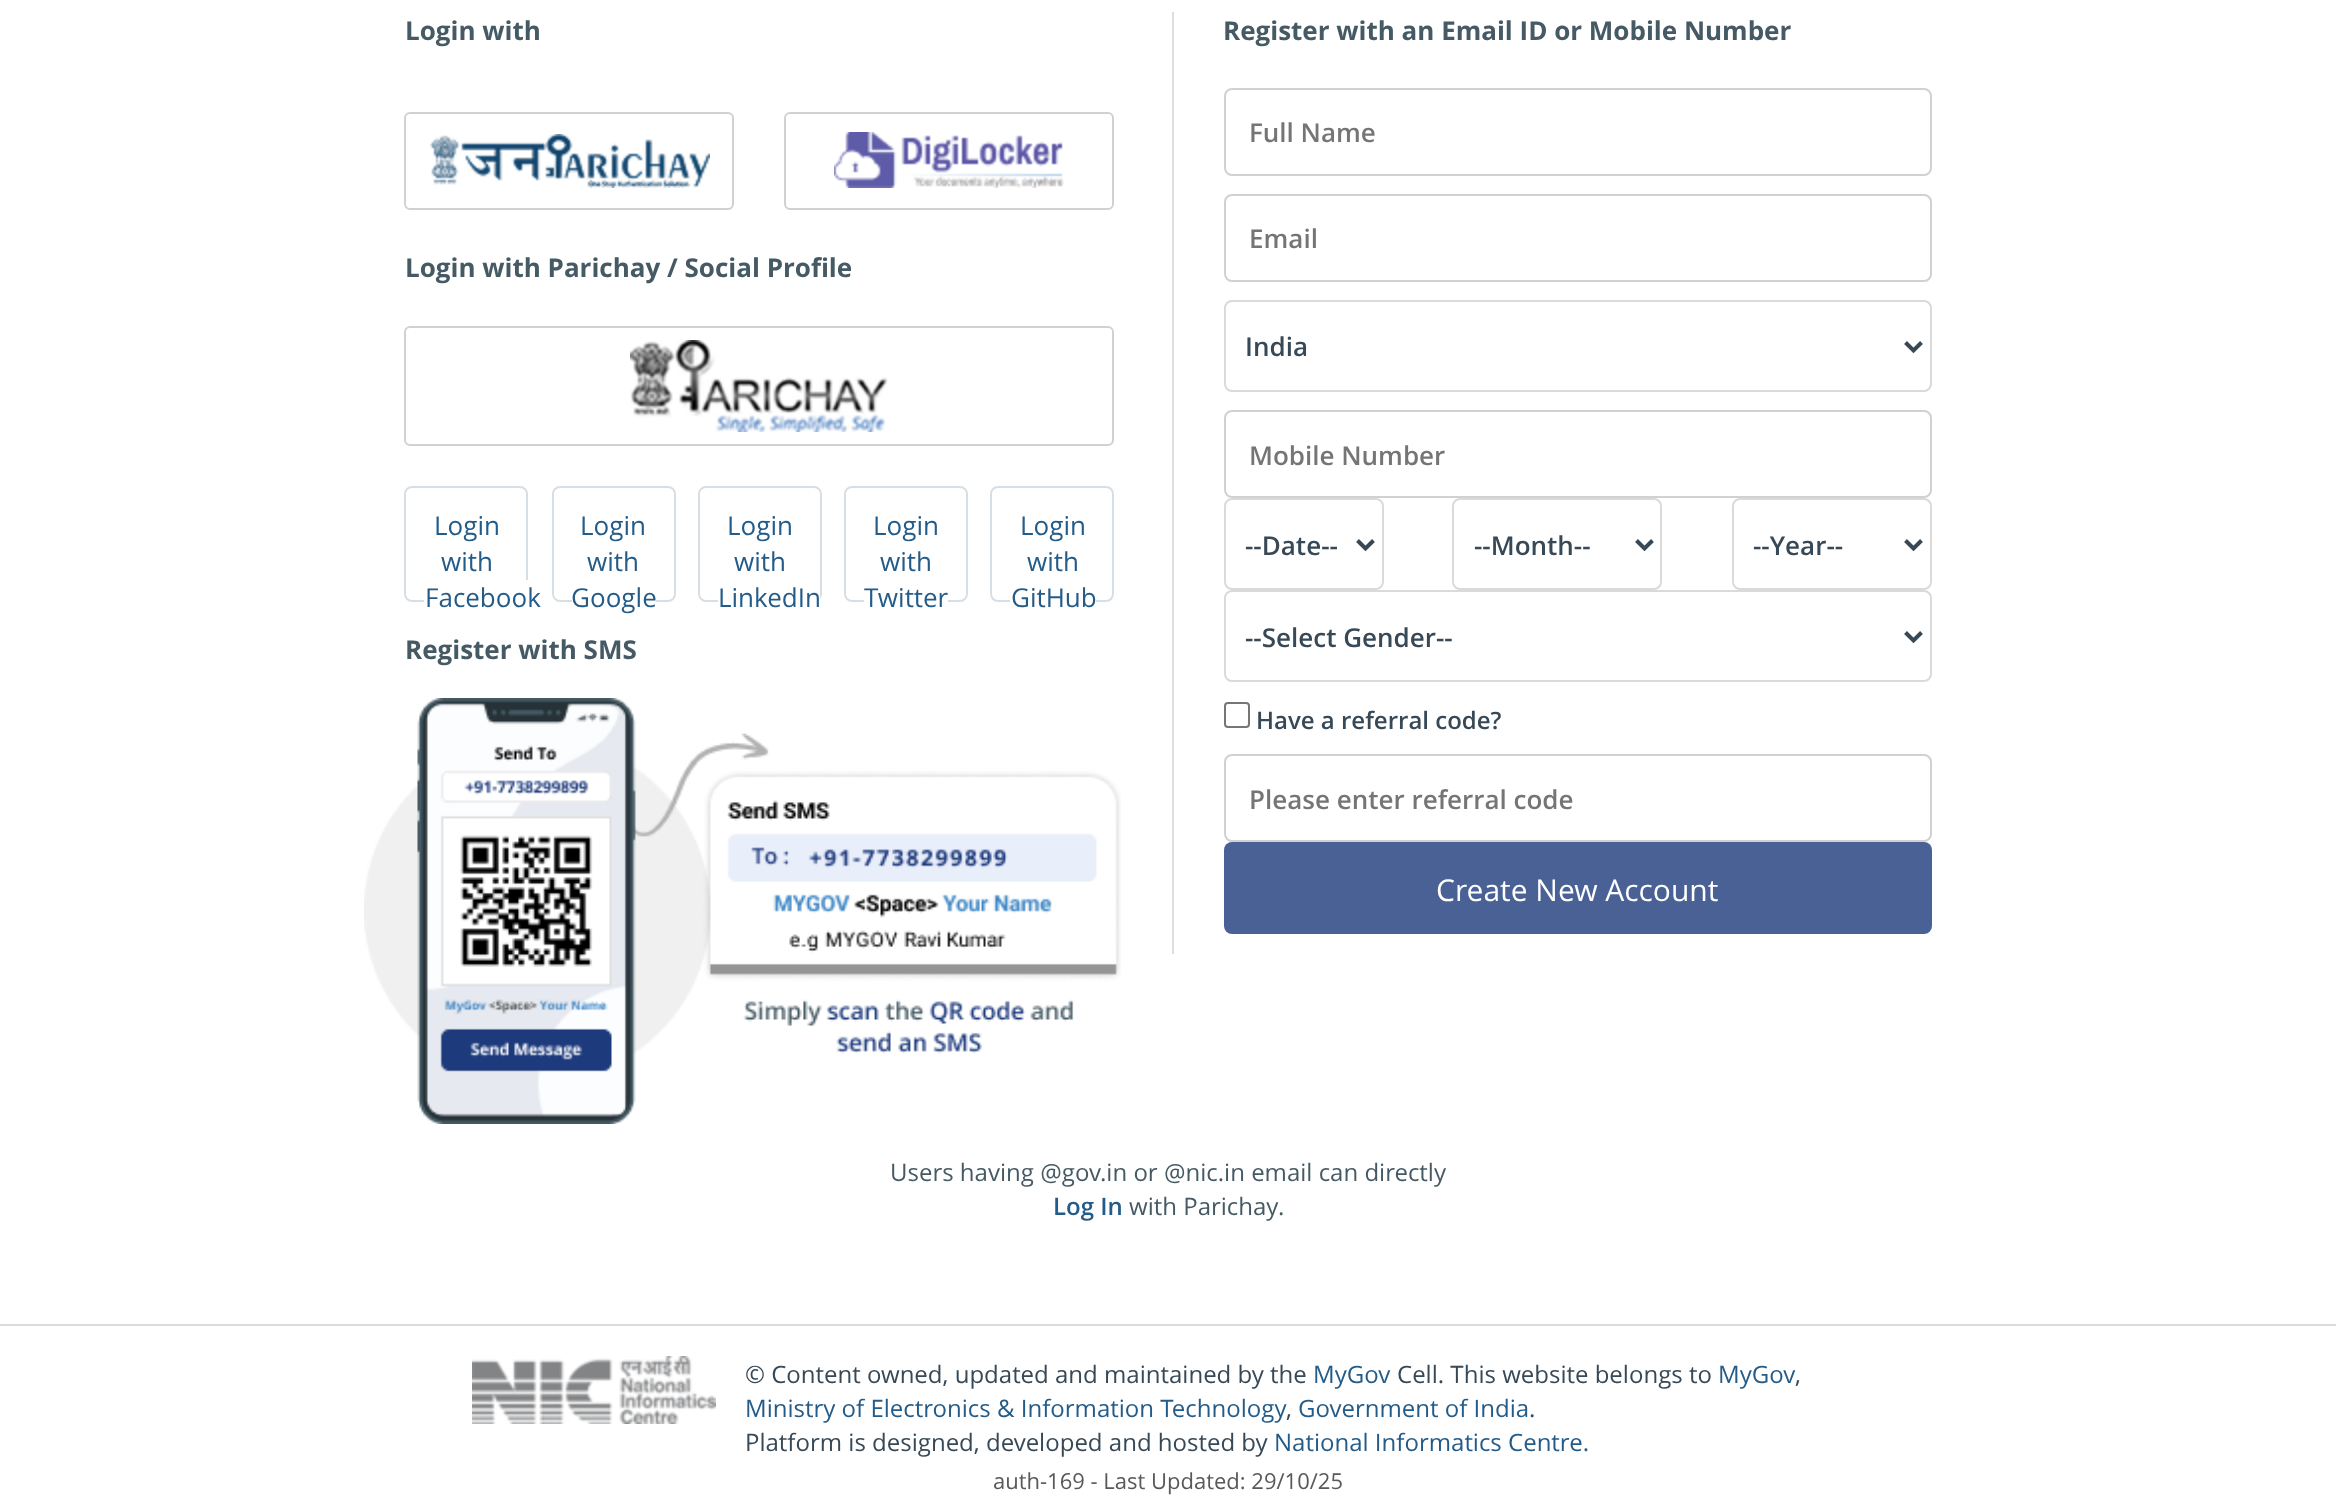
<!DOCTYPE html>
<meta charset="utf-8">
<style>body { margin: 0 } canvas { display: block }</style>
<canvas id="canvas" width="2336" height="1504"></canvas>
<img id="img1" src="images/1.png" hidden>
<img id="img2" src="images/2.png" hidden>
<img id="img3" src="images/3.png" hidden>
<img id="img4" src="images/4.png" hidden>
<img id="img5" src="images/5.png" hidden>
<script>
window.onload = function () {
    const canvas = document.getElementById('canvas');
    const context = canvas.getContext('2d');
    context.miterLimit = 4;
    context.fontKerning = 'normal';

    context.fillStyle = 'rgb(255, 255, 255)';
    context.fillRect(0, 0, 2336, 1504);
    context.beginPath();
    context.roundRect(405, 113, 328, 96, 5);
    context.strokeStyle = 'rgb(209, 209, 209)';
    context.lineWidth = 2;
    context.stroke();
    context.drawImage(document.getElementById('img1'), 430, 134, 280, 54);
    context.beginPath();
    context.roundRect(785, 113, 328, 96, 5);
    context.stroke();
    context.drawImage(document.getElementById('img2'), 834, 132, 230, 56);
    context.beginPath();
    context.roundRect(405, 327, 708, 118, 5);
    context.stroke();
    context.drawImage(document.getElementById('img3'), 630, 340, 258, 92);
    context.beginPath();
    context.roundRect(405, 487, 122, 114, 7);
    context.strokeStyle = 'rgb(215, 223, 229)';
    context.stroke();
    context.fillRect(424, 580, 104, 22);
    context.beginPath();
    context.roundRect(553, 487, 122, 114, 7);
    context.stroke();
    context.fillRect(572, 600, 84, 2);
    context.beginPath();
    context.roundRect(699, 487, 122, 114, 7);
    context.stroke();
    context.fillRect(718, 595, 102, 7);
    context.beginPath();
    context.roundRect(845, 487, 122, 114, 7);
    context.stroke();
    context.fillRect(864, 600, 84, 2);
    context.beginPath();
    context.roundRect(991, 487, 122, 114, 7);
    context.stroke();
    context.fillRect(1010, 600, 86, 2);
    context.drawImage(document.getElementById('img4'), 364, 698, 757, 426);
    context.fillStyle = 'rgb(220, 223, 225)';
    context.fillRect(1172, 12, 2, 942);
    context.beginPath();
    context.roundRect(1225, 89, 706, 86, 7);
    context.strokeStyle = 'rgb(209, 209, 209)';
    context.stroke();
    context.beginPath();
    context.roundRect(1225, 195, 706, 86, 7);
    context.stroke();
    context.beginPath();
    context.roundRect(1225, 301, 706, 90, 7);
    context.strokeStyle = 'rgb(218, 218, 218)';
    context.stroke();
    context.beginPath();
    context.moveTo(1905.5, 342.5);
    context.lineTo(1913.5, 350.5);
    context.lineTo(1921.5, 342.5);
    context.strokeStyle = 'rgb(55, 73, 87)';
    context.lineWidth = 4;
    context.stroke();
    context.beginPath();
    context.roundRect(1225, 411, 706, 86, 7);
    context.strokeStyle = 'rgb(209, 209, 209)';
    context.lineWidth = 2;
    context.stroke();
    context.beginPath();
    context.roundRect(1225, 499, 158, 90, 7);
    context.strokeStyle = 'rgb(218, 218, 218)';
    context.stroke();
    context.beginPath();
    context.moveTo(1357.5, 540.5);
    context.lineTo(1365.5, 548.5);
    context.lineTo(1373.5, 540.5);
    context.strokeStyle = 'rgb(55, 73, 87)';
    context.lineWidth = 4;
    context.stroke();
    context.beginPath();
    context.roundRect(1453, 499, 208, 90, 7);
    context.strokeStyle = 'rgb(218, 218, 218)';
    context.lineWidth = 2;
    context.stroke();
    context.beginPath();
    context.moveTo(1636.5, 540.5);
    context.lineTo(1644.5, 548.5);
    context.lineTo(1652.5, 540.5);
    context.strokeStyle = 'rgb(55, 73, 87)';
    context.lineWidth = 4;
    context.stroke();
    context.beginPath();
    context.roundRect(1733, 499, 198, 90, 7);
    context.strokeStyle = 'rgb(218, 218, 218)';
    context.lineWidth = 2;
    context.stroke();
    context.beginPath();
    context.moveTo(1905.5, 540.5);
    context.lineTo(1913.5, 548.5);
    context.lineTo(1921.5, 540.5);
    context.strokeStyle = 'rgb(55, 73, 87)';
    context.lineWidth = 4;
    context.stroke();
    context.beginPath();
    context.roundRect(1225, 591, 706, 90, 7);
    context.strokeStyle = 'rgb(218, 218, 218)';
    context.lineWidth = 2;
    context.stroke();
    context.beginPath();
    context.moveTo(1905.5, 632.5);
    context.lineTo(1913.5, 640.5);
    context.lineTo(1921.5, 632.5);
    context.strokeStyle = 'rgb(55, 73, 87)';
    context.lineWidth = 4;
    context.stroke();
    context.beginPath();
    context.roundRect(1225, 703, 24, 24, 3);
    context.strokeStyle = 'rgb(118, 118, 118)';
    context.lineWidth = 2;
    context.stroke();
    context.beginPath();
    context.roundRect(1225, 755, 706, 86, 7);
    context.strokeStyle = 'rgb(209, 209, 209)';
    context.stroke();
    context.fillStyle = 'rgb(74, 97, 150)';
    context.beginPath();
    context.roundRect(1224, 842, 708, 92, 8);
    context.fill();
    context.fillStyle = 'rgb(218, 219, 221)';
    context.fillRect(0, 1324, 2336, 2);
    context.drawImage(document.getElementById('img5'), 472, 1356, 244, 68);
    context.font = 'bold 26px Open Sans';
    context.fillStyle = 'rgb(69, 90, 100)';
    context.fillText('Login with', 405, 40);
    context.fillText('Login with Parichay / Social Profile', 405, 277);
    context.font = '26px Open Sans';
    context.fillStyle = 'rgb(36, 92, 137)';
    context.fillText('Login', 434, 535);
    context.fillText('with', 441, 571);
    context.fillText('Facebook', 425, 607);
    context.fillText('Login', 580, 535);
    context.fillText('with', 587, 571);
    context.fillText('Google', 571, 607);
    context.fillText('Login', 727, 535);
    context.fillText('with', 734, 571);
    context.fillText('LinkedIn', 718, 607);
    context.fillText('Login', 873, 535);
    context.fillText('with', 880, 571);
    context.fillText('Twitter', 864, 607);
    context.fillText('Login', 1020, 535);
    context.fillText('with', 1027, 571);
    context.fillText('GitHub', 1011, 607);
    context.font = 'bold 26px Open Sans';
    context.fillStyle = 'rgb(69, 90, 100)';
    context.fillText('Register with SMS', 405, 659);
    context.fillText('Register with an Email ID or Mobile Number', 1223, 40);
    context.font = '600 26px Open Sans';
    context.fillStyle = 'rgb(117, 117, 117)';
    context.fillText('Full Name', 1249, 142);
    context.fillText('Email', 1249, 248);
    context.fillStyle = 'rgb(55, 73, 87)';
    context.fillText('India', 1245, 356);
    context.fillStyle = 'rgb(117, 117, 117)';
    context.fillText('Mobile Number', 1249, 465);
    context.fillStyle = 'rgb(55, 73, 87)';
    context.fillText('--Date--', 1245, 555);
    context.fillText('--Month--', 1474, 555);
    context.fillText('--Year--', 1753, 555);
    context.fillText('--Select Gender--', 1245, 647);
    context.font = '600 24px Open Sans';
    context.fillText('Have a referral code?', 1256, 729);
    context.font = '600 26px Open Sans';
    context.fillStyle = 'rgb(117, 117, 117)';
    context.fillText('Please enter referral code', 1249, 809);
    context.font = '30px Open Sans';
    context.fillStyle = 'rgb(255, 255, 255)';
    context.fillText('Create New Account', 1436, 901);
    context.font = '24px Open Sans';
    context.fillStyle = 'rgb(69, 90, 100)';
    context.fillText('Users having @gov.in or @nic.in email can directly', 890, 1181);
    context.font = '600 24px Open Sans';
    context.fillStyle = 'rgb(36, 92, 137)';
    context.fillText('Log In', 1053, 1215);
    context.font = '24px Open Sans';
    context.fillStyle = 'rgb(69, 90, 100)';
    context.fillText('with Parichay', 1129, 1215);
    context.fillText('.', 1278, 1215);
    context.fillStyle = 'rgb(55, 73, 87)';
    context.fillText('© Content owned, updated and maintained by the', 745, 1383);
    context.fillStyle = 'rgb(36, 92, 137)';
    context.fillText('MyGov', 1313, 1383);
    context.fillStyle = 'rgb(55, 73, 87)';
    context.fillText('Cell. This website belongs to', 1397, 1383);
    context.fillStyle = 'rgb(36, 92, 137)';
    context.fillText('MyGov', 1718, 1383);
    context.fillStyle = 'rgb(55, 73, 87)';
    context.fillText(',', 1795, 1383);
    context.fillStyle = 'rgb(36, 92, 137)';
    context.fillText('Ministry of Electronics & Information Technology', 745, 1417);
    context.fillStyle = 'rgb(55, 73, 87)';
    context.fillText(',', 1286, 1417);
    context.fillStyle = 'rgb(36, 92, 137)';
    context.fillText('Government of India', 1298, 1417);
    context.fillStyle = 'rgb(55, 73, 87)';
    context.fillText('.', 1529, 1417);
    context.fillText('Platform is designed, developed and hosted by', 745, 1451);
    context.fillStyle = 'rgb(36, 92, 137)';
    context.fillText('National Informatics Centre.', 1274, 1451);
    context.font = '22px Open Sans';
    context.fillStyle = 'rgb(89, 89, 89)';
    context.fillText('auth-169 - Last Updated: 29/10/25', 993, 1489);
};
</script>
